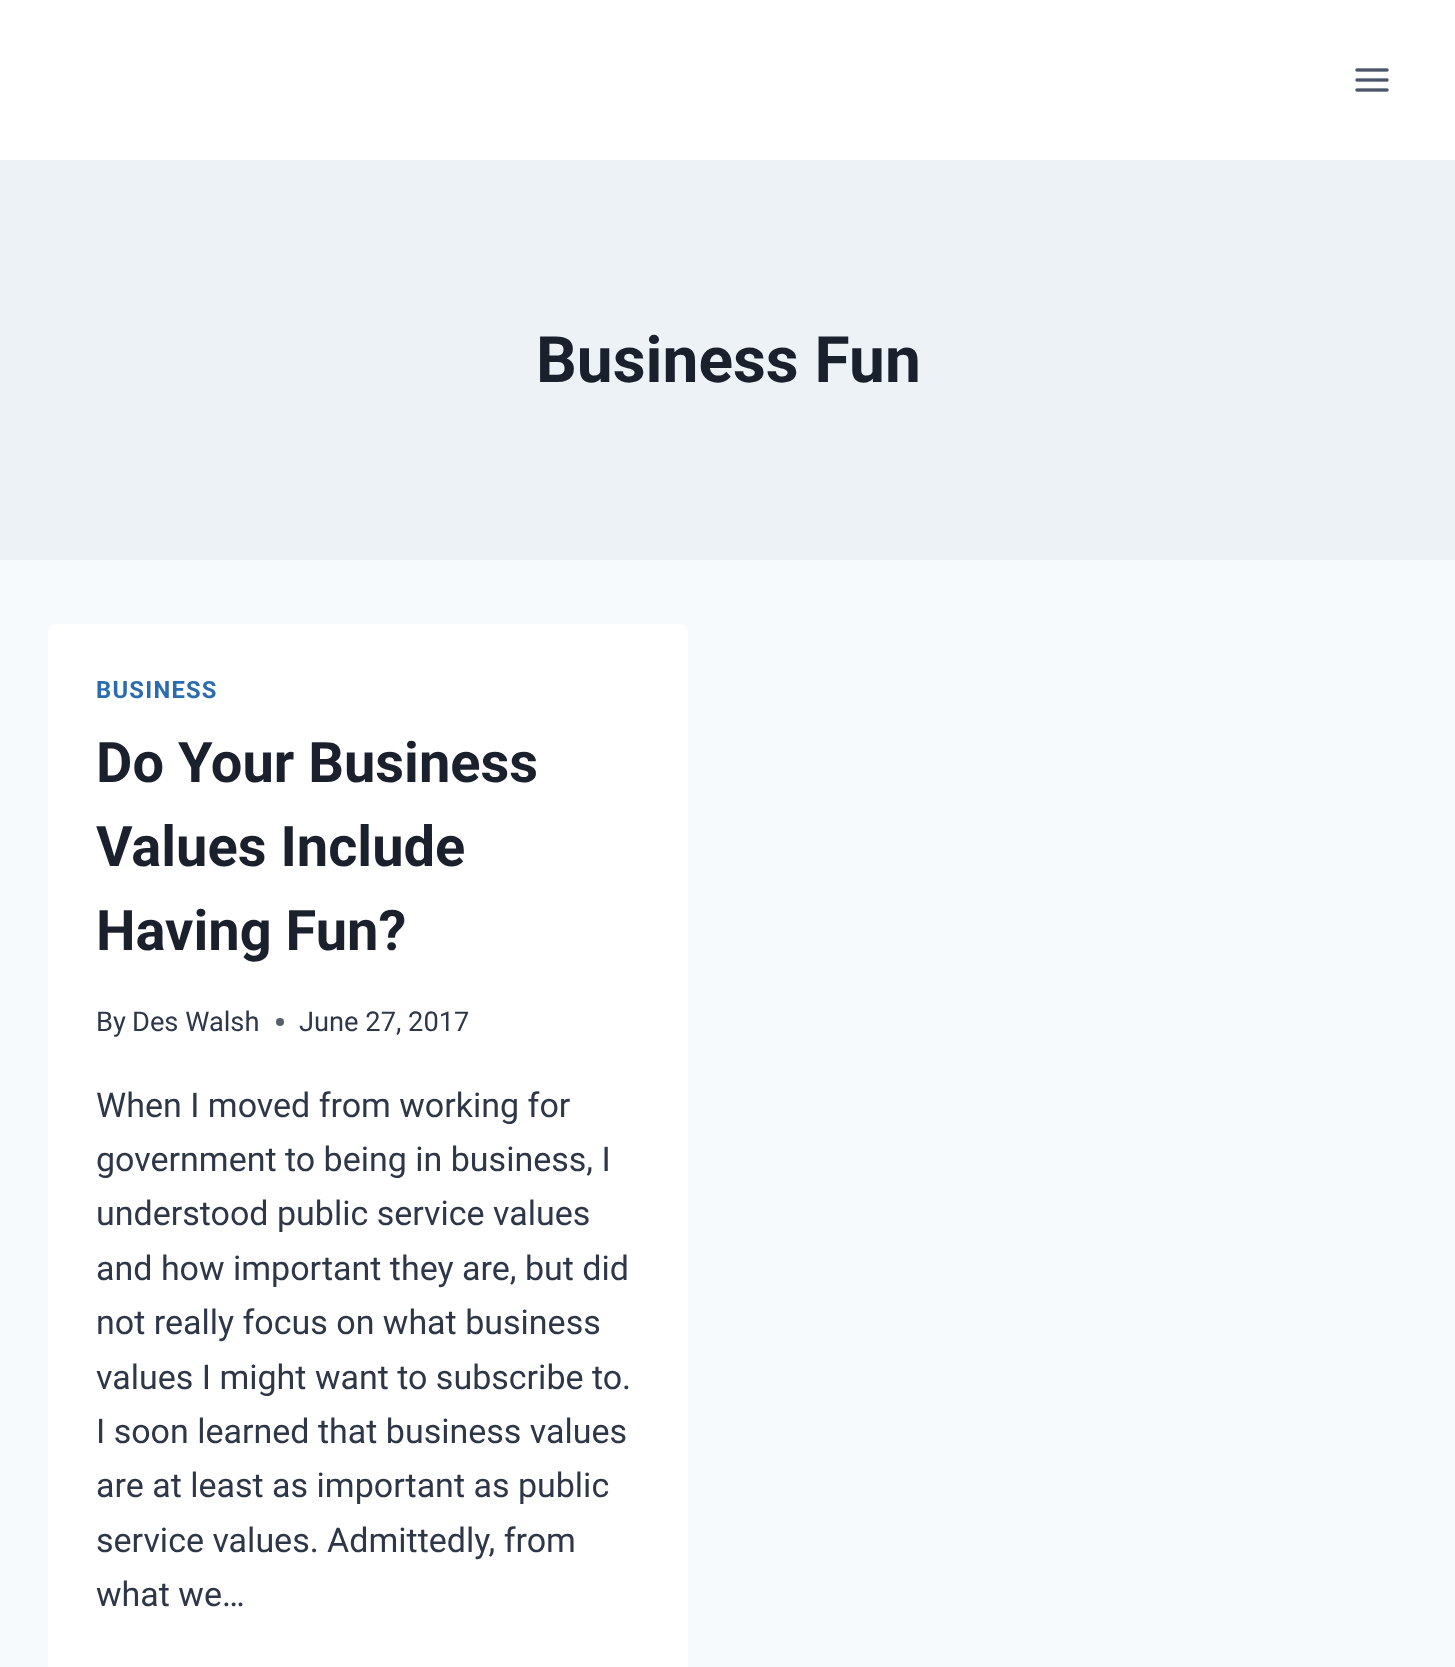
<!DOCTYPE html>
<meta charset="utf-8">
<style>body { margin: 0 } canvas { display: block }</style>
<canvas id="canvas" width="1455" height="1667"></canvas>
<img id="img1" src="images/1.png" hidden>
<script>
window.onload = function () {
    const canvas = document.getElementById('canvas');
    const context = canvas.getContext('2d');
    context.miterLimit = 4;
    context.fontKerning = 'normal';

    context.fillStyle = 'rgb(247, 250, 252)';
    context.fillRect(0, 0, 1455, 1667);
    context.fillStyle = 'rgb(255, 255, 255)';
    context.fillRect(0, 0, 1455, 160);
    context.drawImage(document.getElementById('img1'), 1355, 68, 34, 24);
    context.fillStyle = 'rgb(237, 242, 247)';
    context.fillRect(0, 160, 1455, 400);
    context.fillStyle = 'rgb(255, 255, 255)';
    context.beginPath();
    context.roundRect(48, 624, 640, 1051, 8);
    context.fill();
    context.fillStyle = 'rgb(87, 95, 109)';
    context.beginPath();
    context.arc(280, 1022, 4, 0, 2 * Math.PI);
    context.fill();
    context.font = 'bold 64px Roboto';
    context.fillStyle = 'rgb(26, 32, 44)';
    context.fillText('Business Fun', 536, 382);
    context.letterSpacing = '1.25px';
    context.font = 'bold 23.75px Roboto';
    context.fillStyle = 'rgb(43, 108, 176)';
    context.fillText('BUSINESS', 96, 698);
    context.letterSpacing = '0px';
    context.font = 'bold 56px Roboto';
    context.fillStyle = 'rgb(26, 32, 44)';
    context.fillText('Do Your Business', 96, 782);
    context.fillText('Values Include', 96, 866);
    context.fillText('Having Fun?', 96, 950);
    context.font = '27.25px Roboto';
    context.fillStyle = 'rgb(45, 55, 72)';
    context.fillText('By', 96, 1031);
    context.fillText('Des Walsh', 132, 1031);
    context.fillText('June 27, 2017', 299, 1031);
    context.font = '34px Roboto';
    context.fillText('When I moved from working for', 96, 1117);
    context.fillText('government to being in business, I', 96, 1171);
    context.fillText('understood public service values', 96, 1225);
    context.fillText('and how important they are, but did', 96, 1280);
    context.fillText('not really focus on what business', 96, 1334);
    context.fillText('values I might want to subscribe to.', 96, 1389);
    context.fillText('I soon learned that business values', 96, 1443);
    context.fillText('are at least as important as public', 96, 1497);
    context.fillText('service values. Admittedly, from', 96, 1552);
    context.fillText('what we…', 96, 1606);
};
</script>
